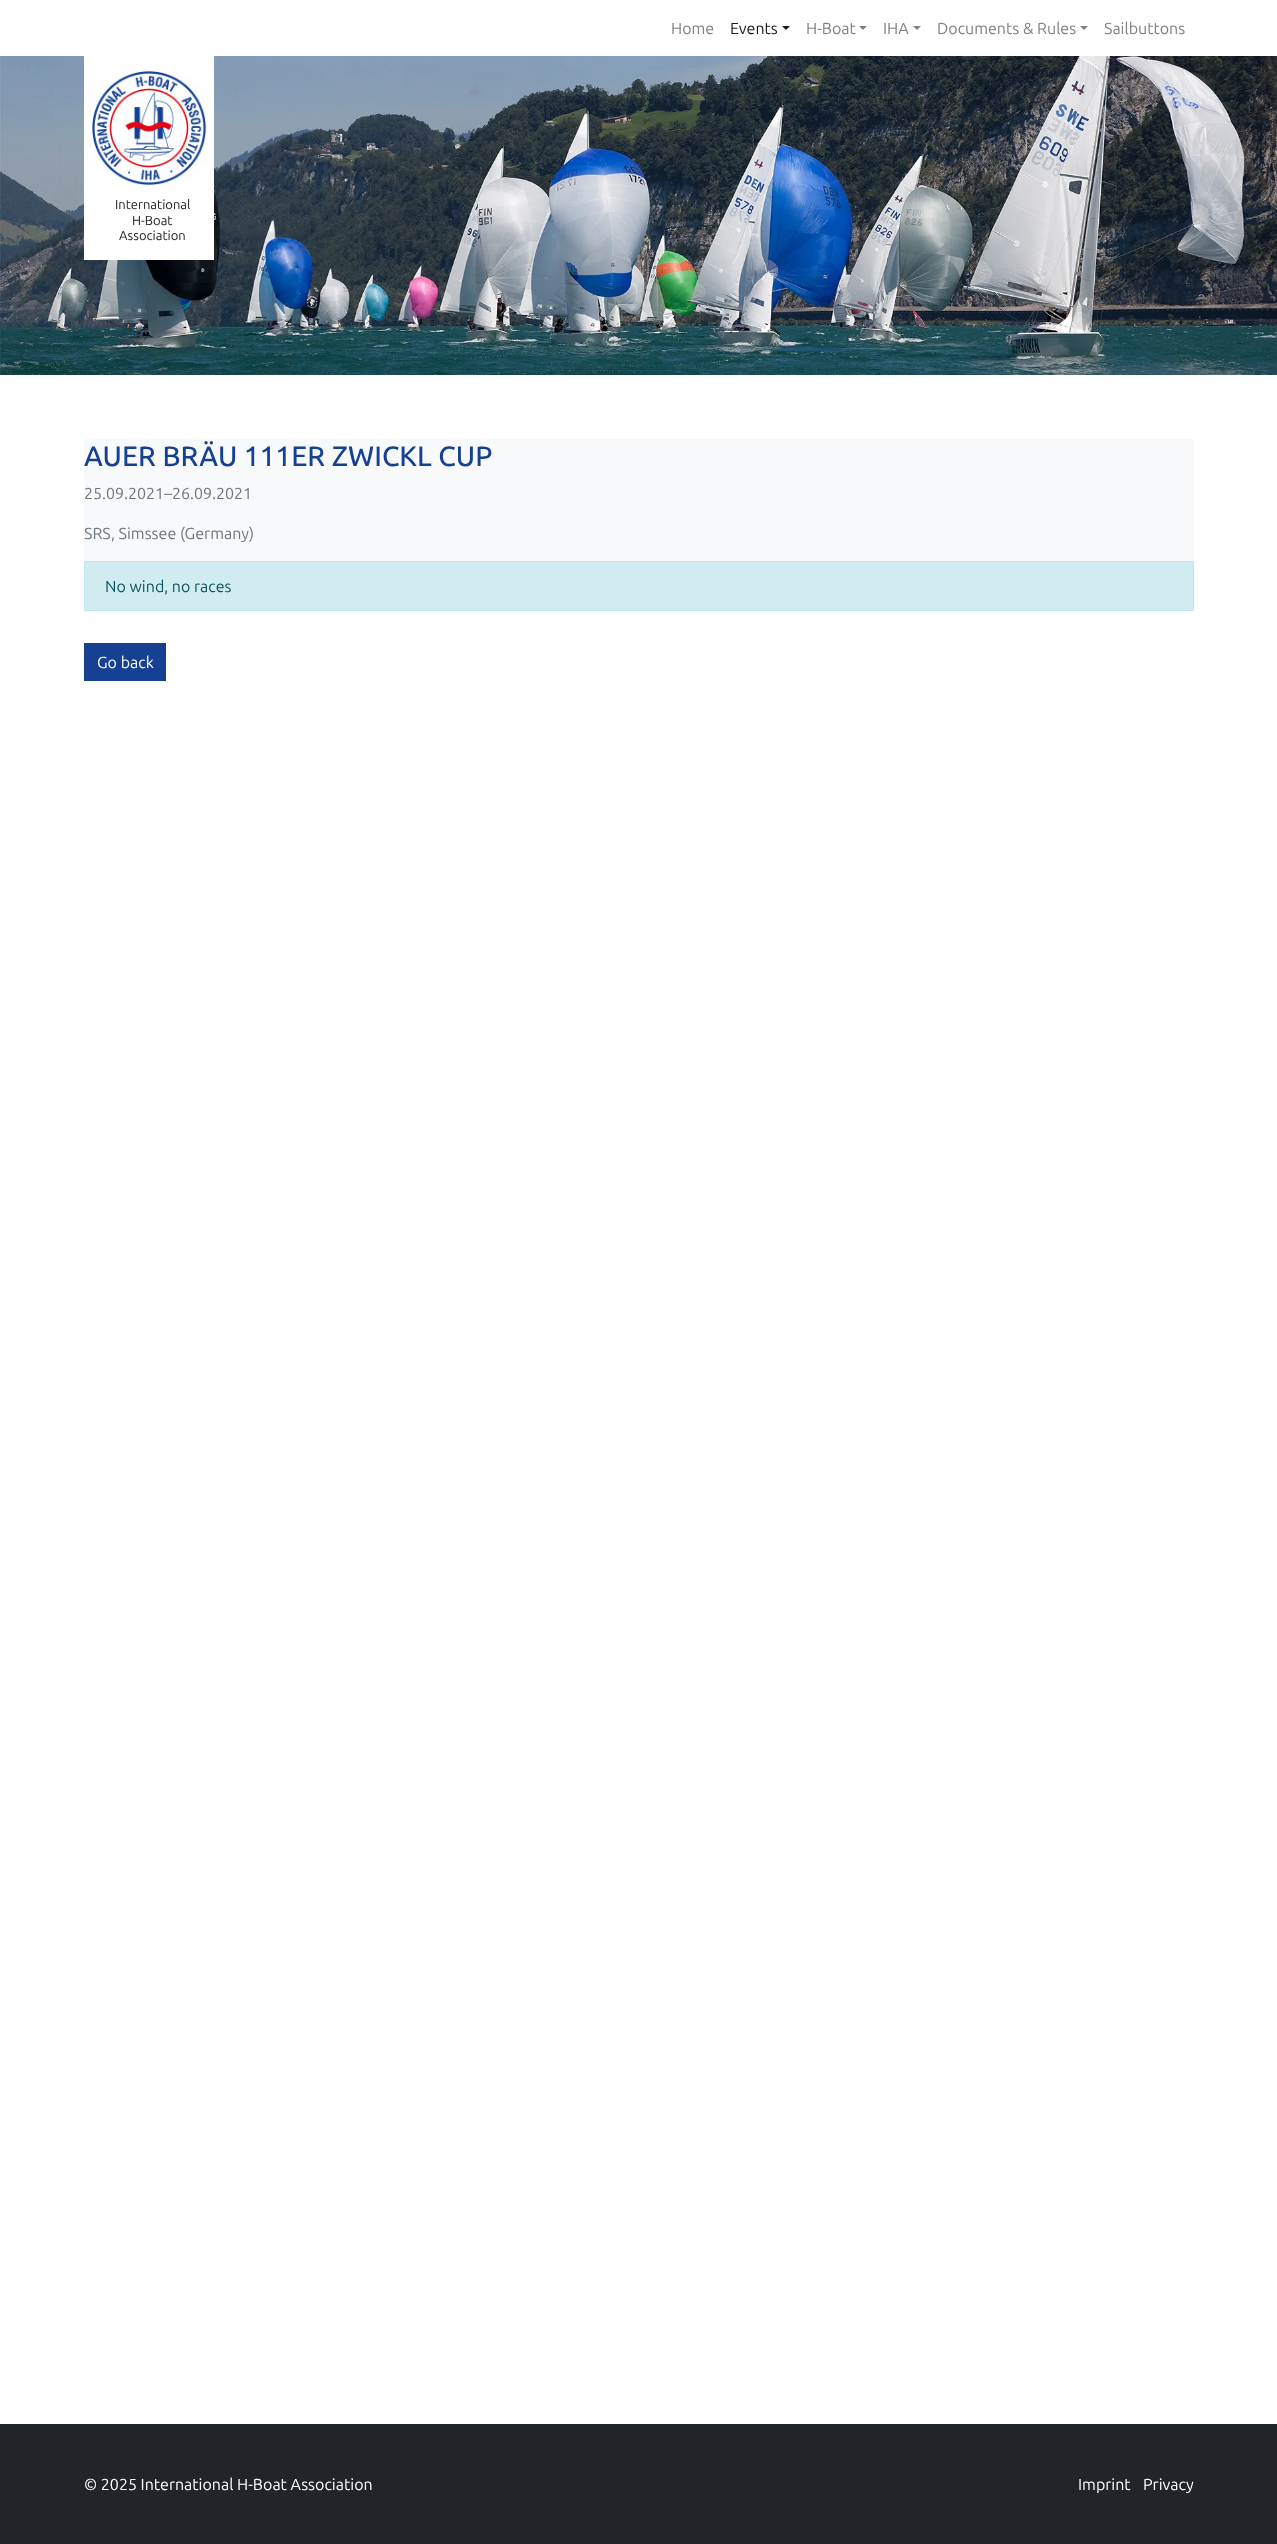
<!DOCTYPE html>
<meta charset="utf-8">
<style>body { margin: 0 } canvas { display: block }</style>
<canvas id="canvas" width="1277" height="2544"></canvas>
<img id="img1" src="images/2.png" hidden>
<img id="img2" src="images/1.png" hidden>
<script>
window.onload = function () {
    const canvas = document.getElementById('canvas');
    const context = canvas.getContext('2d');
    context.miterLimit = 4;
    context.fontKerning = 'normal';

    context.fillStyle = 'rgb(255, 255, 255)';
    context.fillRect(0, 0, 1277, 2544);
    context.fillStyle = 'rgb(26, 26, 26)';
    context.beginPath();
    context.moveTo(782, 26);
    context.lineTo(790, 26);
    context.lineTo(786, 30);
    context.closePath();
    context.fill();
    context.fillStyle = 'rgb(128, 128, 128)';
    context.beginPath();
    context.moveTo(859, 26);
    context.lineTo(867, 26);
    context.lineTo(863, 30);
    context.closePath();
    context.fill();
    context.beginPath();
    context.moveTo(913, 26);
    context.lineTo(921, 26);
    context.lineTo(917, 30);
    context.closePath();
    context.fill();
    context.beginPath();
    context.moveTo(1080, 26);
    context.lineTo(1088, 26);
    context.lineTo(1084, 30);
    context.closePath();
    context.fill();
    context.drawImage(document.getElementById('img1'), 0, 56, 1277, 319);
    context.fillStyle = 'rgb(255, 255, 255)';
    context.fillRect(84, 56, 130, 204);
    context.drawImage(document.getElementById('img2'), 92, 71, 114, 114);
    context.fillStyle = 'rgb(248, 249, 250)';
    context.fillRect(84, 439, 1110, 122);
    context.fillStyle = 'rgb(209, 236, 241)';
    context.beginPath();
    context.rect(84.5, 561.5, 1109, 49);
    context.fill();
    context.strokeStyle = 'rgb(190, 229, 235)';
    context.stroke();
    context.fillStyle = 'rgb(22, 65, 147)';
    context.fillRect(84, 643, 82, 38);
    context.fillStyle = 'rgb(33, 37, 41)';
    context.fillRect(0, 2424, 1277, 120);
    context.font = '16px Ubuntu';
    context.fillStyle = 'rgb(128, 128, 128)';
    context.fillText('Home', 671, 34);
    context.fillStyle = 'rgb(26, 26, 26)';
    context.fillText('Events', 730, 34);
    context.fillStyle = 'rgb(128, 128, 128)';
    context.fillText('H-Boat', 806, 34);
    context.fillText('IHA', 883, 34);
    context.fillText('Documents & Rules', 937, 34);
    context.fillText('Sailbuttons', 1104, 34);
    context.font = '13px Ubuntu';
    context.fillStyle = 'rgb(26, 26, 26)';
    context.fillText('International', 115, 209);
    context.fillText('H-Boat', 132, 225);
    context.fillText('Association', 119, 240);
    context.font = '500 28px Ubuntu';
    context.fillStyle = 'rgb(22, 65, 147)';
    context.fillText('AUER BRÄU 111ER ZWICKL CUP', 84, 466);
    context.font = '16px Ubuntu';
    context.fillStyle = 'rgb(108, 117, 125)';
    context.fillText('25.09.2021–26.09.2021', 84, 499);
    context.fillText('SRS, Simssee (Germany)', 84, 539);
    context.fillStyle = 'rgb(12, 84, 96)';
    context.fillText('No wind, no races', 105, 592);
    context.fillStyle = 'rgb(255, 255, 255)';
    context.fillText('Go back', 97, 668);
    context.fillText('© 2025 International H-Boat Association', 84, 2490);
    context.fillText('Imprint', 1078, 2490);
    context.fillText('Privacy', 1143, 2490);
};
</script>
